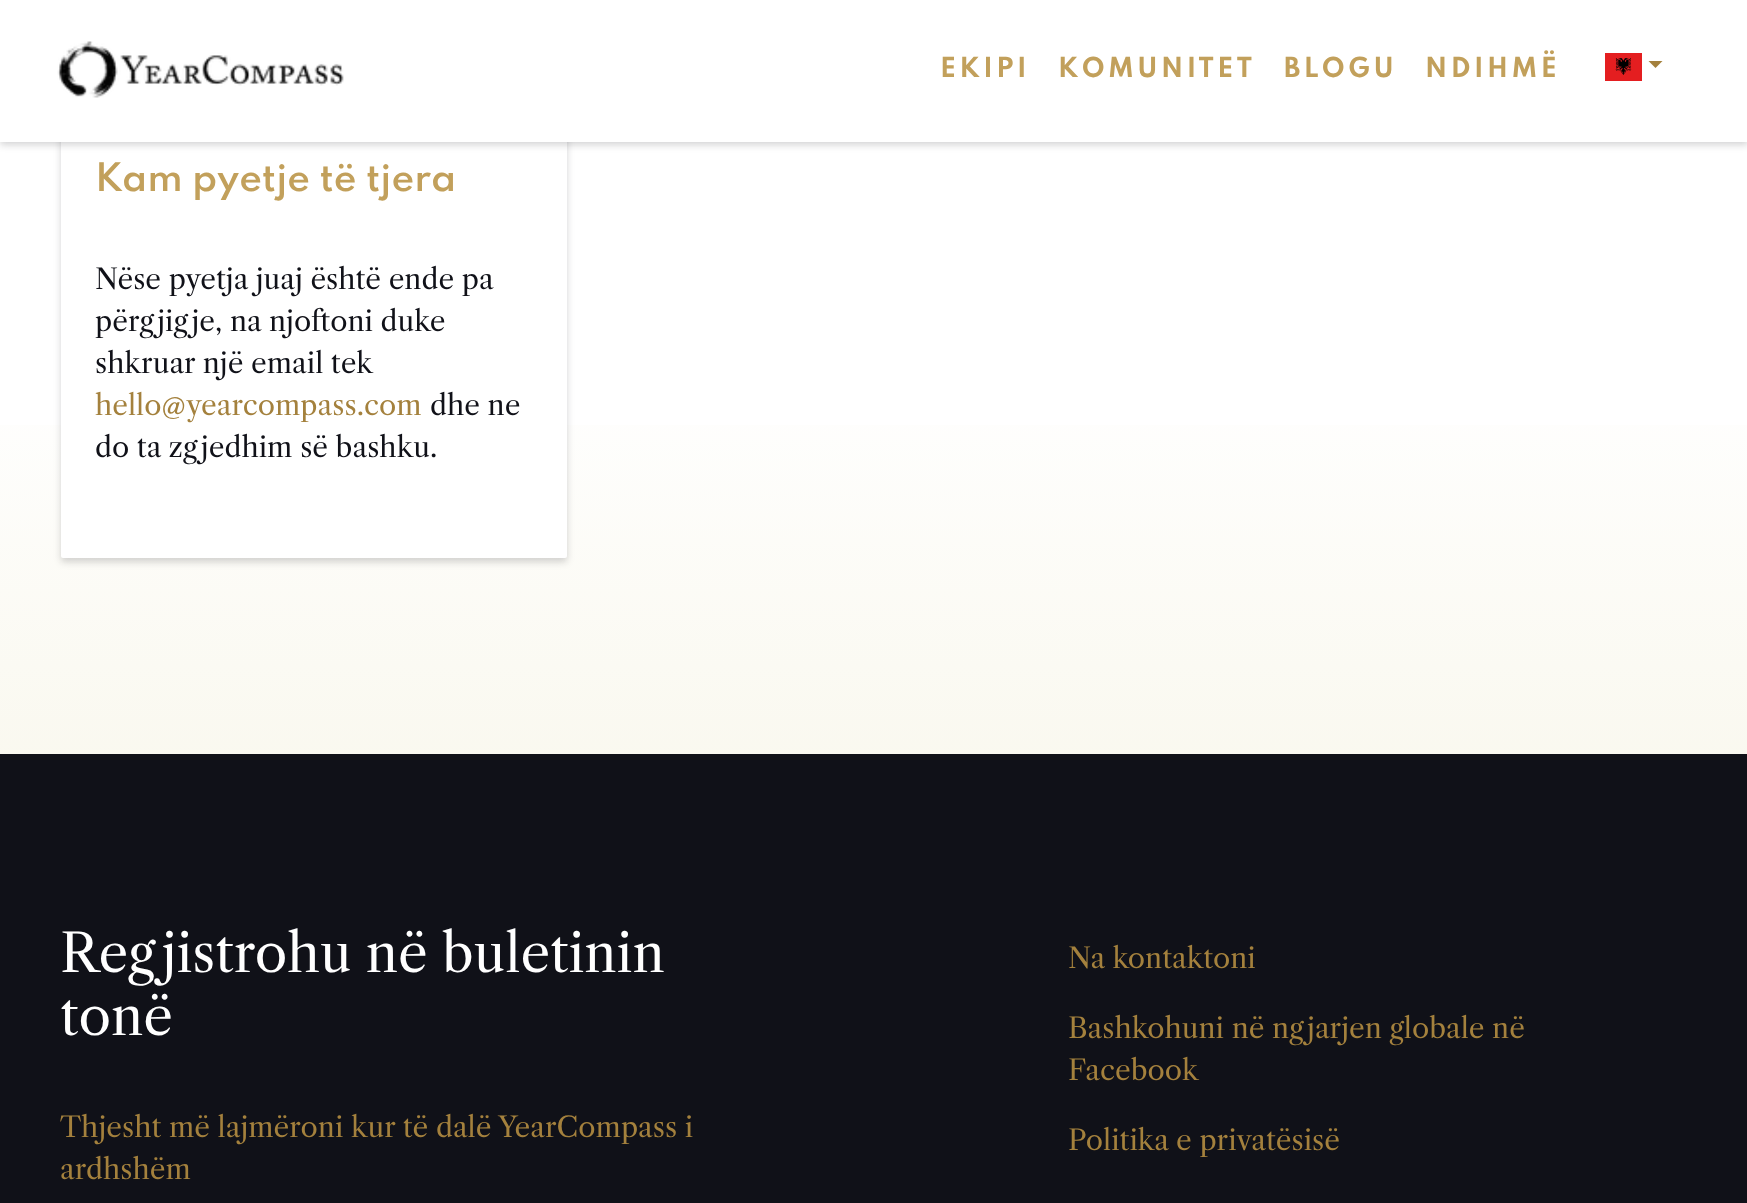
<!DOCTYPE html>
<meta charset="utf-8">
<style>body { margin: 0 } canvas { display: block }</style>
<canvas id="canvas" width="1747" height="1203"></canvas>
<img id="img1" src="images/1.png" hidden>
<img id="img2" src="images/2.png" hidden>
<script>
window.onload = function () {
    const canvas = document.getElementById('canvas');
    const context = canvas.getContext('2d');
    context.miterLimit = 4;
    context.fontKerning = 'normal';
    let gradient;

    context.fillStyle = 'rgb(255, 255, 255)';
    context.fillRect(0, 0, 1747, 1203);
    gradient = context.createLinearGradient(874, 0, 874, 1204);
    gradient.addColorStop(0.3, 'rgb(255, 255, 255)');
    gradient.addColorStop(1, 'rgb(244, 241, 222)');
    context.fillStyle = gradient;
    context.fillRect(0, 425, 1747, 329);
    context.fillStyle = 'rgba(16, 17, 24, 0.18)';
    context.filter = 'blur(3.5px)';
    context.beginPath();
    context.roundRect(61, 128, 506, 434, 2);
    context.fill();
    context.filter = 'none';
    context.fillStyle = 'rgb(255, 255, 255)';
    context.beginPath();
    context.roundRect(61, 124, 506, 434, 2);
    context.fill();
    context.fillStyle = 'rgba(16, 17, 24, 0.18)';
    context.filter = 'blur(3.5px)';
    context.beginPath();
    context.rect(0, 4, 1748, 141);
    context.fill();
    context.filter = 'none';
    context.fillStyle = 'rgb(255, 255, 255)';
    context.fillRect(0, 0, 1747, 142);
    context.drawImage(document.getElementById('img1'), 57, 41, 287, 57);
    context.drawImage(document.getElementById('img2'), 1605, 53, 37, 28);
    context.fillStyle = 'rgb(164, 129, 61)';
    context.beginPath();
    context.moveTo(1648.5, 61);
    context.lineTo(1662.5, 61);
    context.lineTo(1655.5, 68);
    context.closePath();
    context.fill();
    context.fillStyle = 'rgb(16, 17, 24)';
    context.fillRect(0, 754, 1747, 449);
    context.letterSpacing = '3.5px';
    context.font = 'bold 24.5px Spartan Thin';
    context.fillStyle = 'rgb(194, 160, 91)';
    context.fillText('EKIPI', 940, 77);
    context.fillText('KOMUNITET', 1058, 77);
    context.fillText('BLOGU', 1284, 77);
    context.fillText('NDIHMË', 1425, 77);
    context.letterSpacing = '0px';
    context.font = '600 35px Spartan Thin';
    context.fillText('Kam pyetje të tjera', 95, 191);
    context.font = '28px Libre Caslon Text';
    context.fillStyle = 'rgb(16, 17, 24)';
    context.fillText('Nëse pyetja juaj është ende pa', 95, 289);
    context.fillText('përgjigje, na njoftoni duke', 95, 331);
    context.fillText('shkruar një email tek', 95, 373);
    context.fillStyle = 'rgb(164, 129, 61)';
    context.fillText('hello@yearcompass.com', 95, 415);
    context.fillStyle = 'rgb(16, 17, 24)';
    context.fillText('dhe ne', 430, 415);
    context.fillText('do ta zgjedhim së bashku.', 95, 457);
    context.font = '52.75px Libre Caslon Text';
    context.fillStyle = 'rgb(255, 255, 255)';
    context.fillText('Regjistrohu në buletinin', 60, 972);
    context.fillText('tonë', 60, 1035);
    context.font = '28px Libre Caslon Text';
    context.fillStyle = 'rgb(164, 129, 61)';
    context.fillText('Thjesht më lajmëroni kur të dalë YearCompass i', 60, 1137);
    context.fillText('ardhshëm', 60, 1179);
    context.fillText('Na kontaktoni', 1068, 968);
    context.fillText('Bashkohuni në ngjarjen globale në', 1068, 1038);
    context.fillText('Facebook', 1068, 1080);
    context.fillText('Politika e privatësisë', 1068, 1150);
};
</script>
